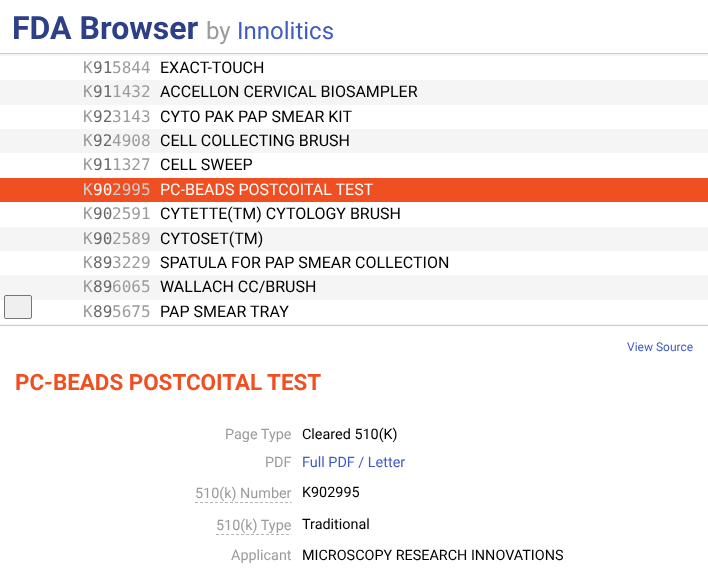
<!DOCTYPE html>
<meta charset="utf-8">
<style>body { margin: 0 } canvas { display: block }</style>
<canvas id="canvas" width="708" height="581"></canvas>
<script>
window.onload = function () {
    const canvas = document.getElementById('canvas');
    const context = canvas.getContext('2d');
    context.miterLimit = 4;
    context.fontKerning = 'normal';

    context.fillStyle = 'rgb(255, 255, 255)';
    context.fillRect(0, 0, 708, 581);
    context.fillStyle = 'rgb(204, 204, 204)';
    context.fillRect(0, 53, 708, 1);
    context.fillStyle = 'rgb(245, 245, 245)';
    context.fillRect(0, 54, 708, 271);
    context.fillStyle = 'rgb(255, 255, 255)';
    context.fillRect(0, 56, 708, 24);
    context.fillRect(0, 105, 708, 24);
    context.fillRect(0, 153, 708, 25);
    context.fillStyle = 'rgb(240, 79, 34)';
    context.fillRect(0, 178, 708, 24);
    context.fillStyle = 'rgb(255, 255, 255)';
    context.fillRect(0, 202, 708, 25);
    context.fillRect(0, 251, 708, 24);
    context.fillRect(0, 300, 708, 24);
    context.fillStyle = 'rgb(204, 204, 204)';
    context.fillRect(0, 325, 708, 1);
    context.fillStyle = 'rgb(239, 239, 239)';
    context.beginPath();
    context.roundRect(4.5, 295.5, 27, 23, 1.5);
    context.fill();
    context.strokeStyle = 'rgb(118, 118, 118)';
    context.stroke();
    context.beginPath();
    context.moveTo(195, 502.5);
    context.lineTo(291.5, 502.5);
    context.strokeStyle = 'rgb(181, 181, 181)';
    context.setLineDash([3, 2]);
    context.stroke();
    context.beginPath();
    context.moveTo(216, 534.5);
    context.lineTo(291.5, 534.5);
    context.stroke();
    context.font = 'bold 32px Roboto';
    context.fillStyle = 'rgb(45, 64, 135)';
    context.fillText('FDA Browser', 12, 39);
    context.font = '24px Roboto';
    context.fillStyle = 'rgb(155, 155, 155)';
    context.fillText('by', 206, 39);
    context.fillStyle = 'rgb(65, 92, 192)';
    context.fillText('Innolitics', 237, 39);
    context.font = '16px DejaVu Sans Mono';
    context.fillStyle = 'rgb(155, 155, 155)';
    context.fillText('K', 83, 73);
    context.fillStyle = 'rgb(104, 104, 104)';
    context.fillText('91', 93, 73);
    context.fillStyle = 'rgb(155, 155, 155)';
    context.fillText('5844', 112, 73);
    context.font = '16px Roboto';
    context.fillStyle = 'rgb(0, 0, 0)';
    context.fillText('EXACT-TOUCH', 160, 73);
    context.font = '16px DejaVu Sans Mono';
    context.fillStyle = 'rgb(155, 155, 155)';
    context.fillText('K', 83, 97);
    context.fillStyle = 'rgb(104, 104, 104)';
    context.fillText('91', 93, 97);
    context.fillStyle = 'rgb(155, 155, 155)';
    context.fillText('1432', 112, 97);
    context.font = '16px Roboto';
    context.fillStyle = 'rgb(0, 0, 0)';
    context.fillText('ACCELLON CERVICAL BIOSAMPLER', 160, 97);
    context.font = '16px DejaVu Sans Mono';
    context.fillStyle = 'rgb(155, 155, 155)';
    context.fillText('K', 83, 122);
    context.fillStyle = 'rgb(104, 104, 104)';
    context.fillText('92', 93, 122);
    context.fillStyle = 'rgb(155, 155, 155)';
    context.fillText('3143', 112, 122);
    context.font = '16px Roboto';
    context.fillStyle = 'rgb(0, 0, 0)';
    context.fillText('CYTO PAK PAP SMEAR KIT', 160, 122);
    context.font = '16px DejaVu Sans Mono';
    context.fillStyle = 'rgb(155, 155, 155)';
    context.fillText('K', 83, 146);
    context.fillStyle = 'rgb(104, 104, 104)';
    context.fillText('92', 93, 146);
    context.fillStyle = 'rgb(155, 155, 155)';
    context.fillText('4908', 112, 146);
    context.font = '16px Roboto';
    context.fillStyle = 'rgb(0, 0, 0)';
    context.fillText('CELL COLLECTING BRUSH', 160, 146);
    context.font = '16px DejaVu Sans Mono';
    context.fillStyle = 'rgb(155, 155, 155)';
    context.fillText('K', 83, 170);
    context.fillStyle = 'rgb(104, 104, 104)';
    context.fillText('91', 93, 170);
    context.fillStyle = 'rgb(155, 155, 155)';
    context.fillText('1327', 112, 170);
    context.font = '16px Roboto';
    context.fillStyle = 'rgb(0, 0, 0)';
    context.fillText('CELL SWEEP', 160, 170);
    context.font = '16px DejaVu Sans Mono';
    context.fillStyle = 'rgb(206, 206, 206)';
    context.fillText('K', 83, 195);
    context.fillStyle = 'rgb(255, 255, 255)';
    context.fillText('90', 93, 195);
    context.fillStyle = 'rgb(206, 206, 206)';
    context.fillText('2995', 112, 195);
    context.font = '16px Roboto';
    context.fillStyle = 'rgb(255, 255, 255)';
    context.fillText('PC-BEADS POSTCOITAL TEST', 160, 195);
    context.font = '16px DejaVu Sans Mono';
    context.fillStyle = 'rgb(155, 155, 155)';
    context.fillText('K', 83, 219);
    context.fillStyle = 'rgb(104, 104, 104)';
    context.fillText('90', 93, 219);
    context.fillStyle = 'rgb(155, 155, 155)';
    context.fillText('2591', 112, 219);
    context.font = '16px Roboto';
    context.fillStyle = 'rgb(0, 0, 0)';
    context.fillText('CYTETTE(TM) CYTOLOGY BRUSH', 160, 219);
    context.font = '16px DejaVu Sans Mono';
    context.fillStyle = 'rgb(155, 155, 155)';
    context.fillText('K', 83, 244);
    context.fillStyle = 'rgb(104, 104, 104)';
    context.fillText('90', 93, 244);
    context.fillStyle = 'rgb(155, 155, 155)';
    context.fillText('2589', 112, 244);
    context.font = '16px Roboto';
    context.fillStyle = 'rgb(0, 0, 0)';
    context.fillText('CYTOSET(TM)', 160, 244);
    context.font = '16px DejaVu Sans Mono';
    context.fillStyle = 'rgb(155, 155, 155)';
    context.fillText('K', 83, 268);
    context.fillStyle = 'rgb(104, 104, 104)';
    context.fillText('89', 93, 268);
    context.fillStyle = 'rgb(155, 155, 155)';
    context.fillText('3229', 112, 268);
    context.font = '16px Roboto';
    context.fillStyle = 'rgb(0, 0, 0)';
    context.fillText('SPATULA FOR PAP SMEAR COLLECTION', 160, 268);
    context.font = '16px DejaVu Sans Mono';
    context.fillStyle = 'rgb(155, 155, 155)';
    context.fillText('K', 83, 292);
    context.fillStyle = 'rgb(104, 104, 104)';
    context.fillText('89', 93, 292);
    context.fillStyle = 'rgb(155, 155, 155)';
    context.fillText('6065', 112, 292);
    context.font = '16px Roboto';
    context.fillStyle = 'rgb(0, 0, 0)';
    context.fillText('WALLACH CC/BRUSH', 160, 292);
    context.font = '16px DejaVu Sans Mono';
    context.fillStyle = 'rgb(155, 155, 155)';
    context.fillText('K', 83, 317);
    context.fillStyle = 'rgb(104, 104, 104)';
    context.fillText('89', 93, 317);
    context.fillStyle = 'rgb(155, 155, 155)';
    context.fillText('5675', 112, 317);
    context.font = '16px Roboto';
    context.fillStyle = 'rgb(0, 0, 0)';
    context.fillText('PAP SMEAR TRAY', 160, 317);
    context.font = '12px Roboto';
    context.fillStyle = 'rgb(65, 92, 192)';
    context.fillText('View Source', 627, 351);
    context.font = 'bold 22.4px Roboto';
    context.fillStyle = 'rgb(240, 79, 34)';
    context.fillText('PC-BEADS POSTCOITAL TEST', 15, 390);
    context.font = '14.4px Roboto';
    context.fillStyle = 'rgb(155, 155, 155)';
    context.fillText('Page Type', 225, 439);
    context.fillStyle = 'rgb(0, 0, 0)';
    context.fillText('Cleared 510(K)', 302, 439);
    context.fillStyle = 'rgb(155, 155, 155)';
    context.fillText('PDF', 265, 467);
    context.fillStyle = 'rgb(65, 92, 192)';
    context.fillText('Full PDF / Letter', 302, 467);
    context.fillStyle = 'rgb(155, 155, 155)';
    context.fillText('510(k) Number', 195, 498);
    context.fillStyle = 'rgb(0, 0, 0)';
    context.fillText('K902995', 302, 497);
    context.fillStyle = 'rgb(155, 155, 155)';
    context.fillText('510(k) Type', 216, 530);
    context.fillStyle = 'rgb(0, 0, 0)';
    context.fillText('Traditional', 302, 529);
    context.fillStyle = 'rgb(155, 155, 155)';
    context.fillText('Applicant', 231, 560);
    context.fillStyle = 'rgb(0, 0, 0)';
    context.fillText('MICROSCOPY RESEARCH INNOVATIONS', 302, 560);
};
</script>
